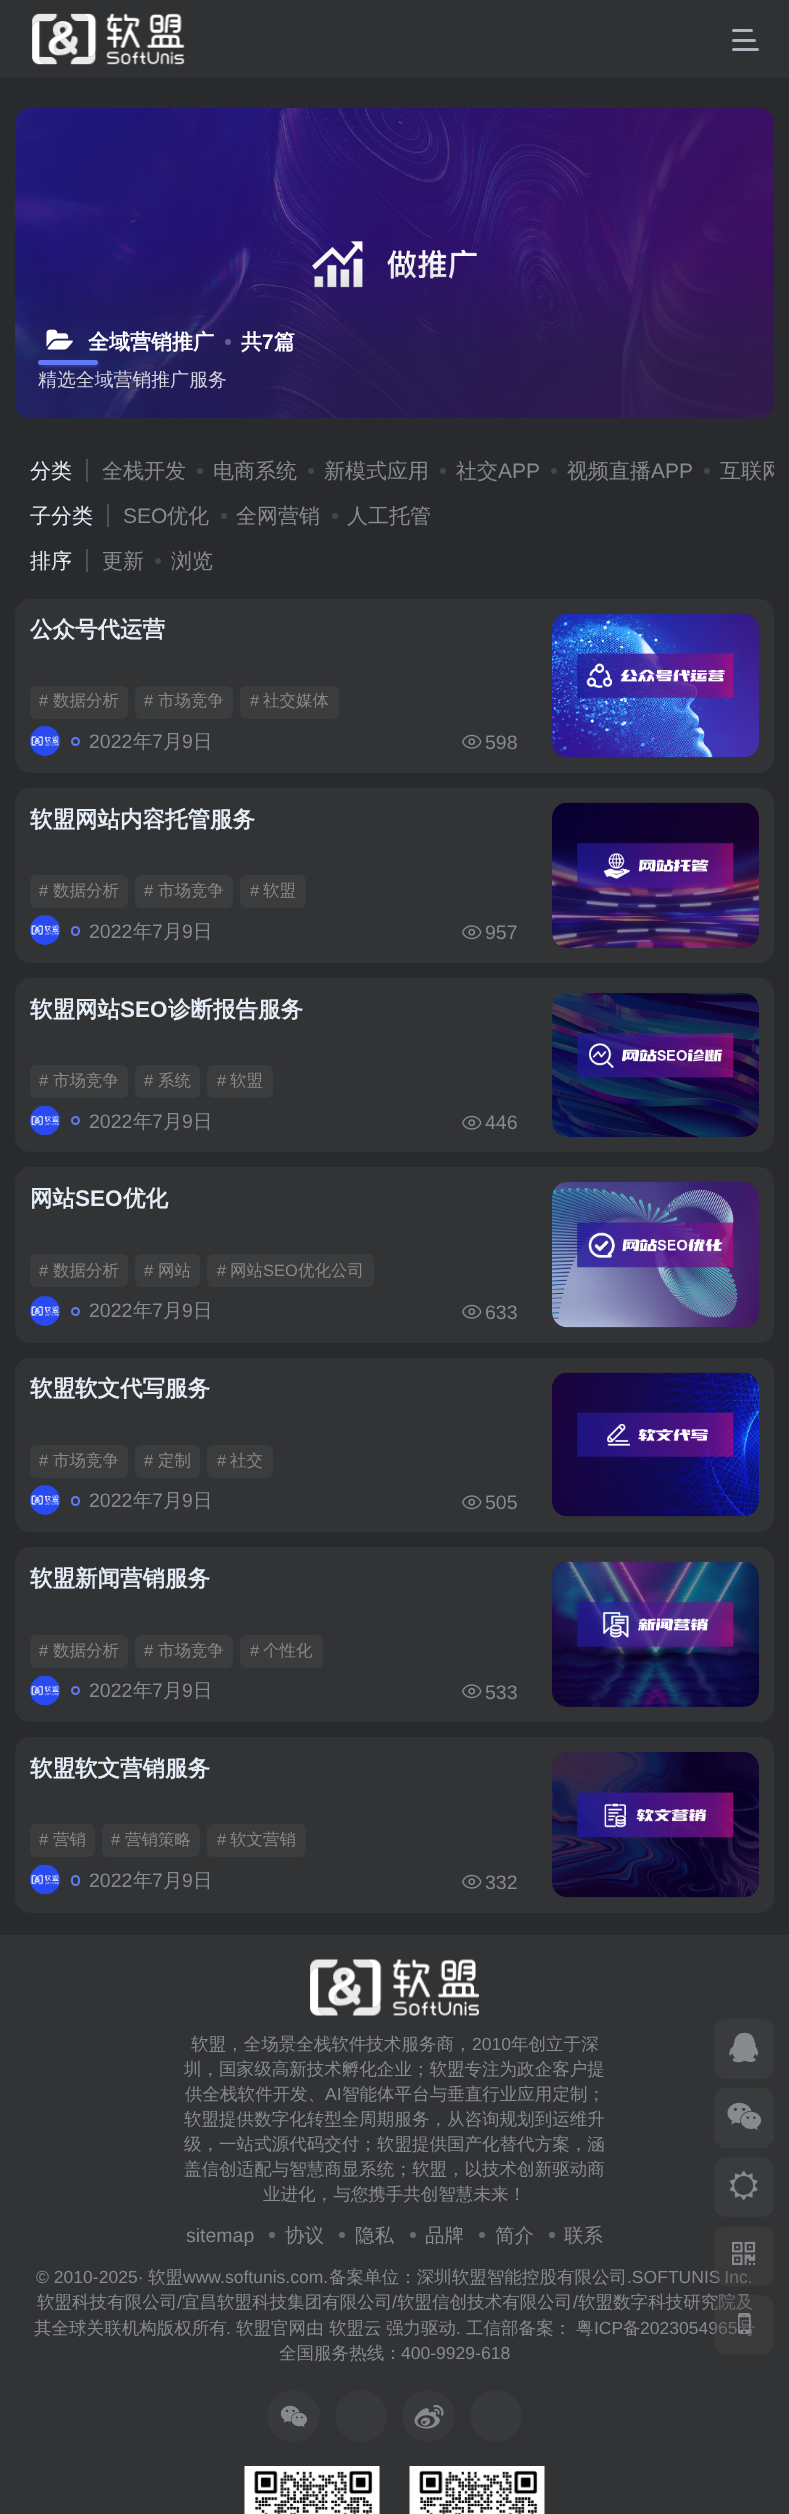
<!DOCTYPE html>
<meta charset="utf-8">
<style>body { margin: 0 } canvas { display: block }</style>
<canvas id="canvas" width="789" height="2514"></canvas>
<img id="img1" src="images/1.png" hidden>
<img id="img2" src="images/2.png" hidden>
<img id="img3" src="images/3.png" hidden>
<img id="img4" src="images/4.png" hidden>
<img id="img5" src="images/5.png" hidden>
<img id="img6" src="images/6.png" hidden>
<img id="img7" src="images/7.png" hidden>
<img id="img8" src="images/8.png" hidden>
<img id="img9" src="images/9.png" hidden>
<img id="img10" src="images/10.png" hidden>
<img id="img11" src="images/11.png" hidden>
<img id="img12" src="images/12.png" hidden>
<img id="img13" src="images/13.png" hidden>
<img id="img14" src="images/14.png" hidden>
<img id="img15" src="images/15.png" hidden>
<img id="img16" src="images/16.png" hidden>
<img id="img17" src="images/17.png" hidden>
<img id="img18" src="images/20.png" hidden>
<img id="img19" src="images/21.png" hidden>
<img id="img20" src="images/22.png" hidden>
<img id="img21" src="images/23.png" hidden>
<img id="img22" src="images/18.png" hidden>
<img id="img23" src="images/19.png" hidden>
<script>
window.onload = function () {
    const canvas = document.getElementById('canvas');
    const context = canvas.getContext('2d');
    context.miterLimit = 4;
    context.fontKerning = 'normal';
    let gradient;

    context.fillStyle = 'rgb(41, 42, 45)';
    context.fillRect(0, 0, 789, 2514);
    context.fillStyle = 'rgb(48, 49, 51)';
    context.fillRect(0, 0, 789, 78);
    context.drawImage(document.getElementById('img1'), 32, 13, 153, 52);
    context.fillStyle = 'rgb(175, 181, 188)';
    context.beginPath();
    context.roundRect(732, 29, 21, 3, 1.5);
    context.fill();
    context.beginPath();
    context.roundRect(732, 39, 24, 3, 1.5);
    context.fill();
    context.beginPath();
    context.roundRect(732, 48, 27, 3, 1.5);
    context.fill();
    context.fillStyle = 'rgb(50, 51, 53)';
    context.beginPath();
    context.roundRect(15, 108, 759, 311, 15);
    context.fill();
    context.drawImage(document.getElementById('img2'), 15, 108, 759, 311);
    gradient = context.createLinearGradient(395, 419, 395, 108);
    gradient.addColorStop(0.2, 'rgba(29, 41, 49, 0.4)');
    gradient.addColorStop(0.54, 'rgba(29, 41, 49, 0)');
    context.fillStyle = gradient;
    context.beginPath();
    context.roundRect(15, 108, 759, 311, 15);
    context.fill();
    context.drawImage(document.getElementById('img3'), 46, 329, 27, 21);
    context.fillStyle = 'rgb(101, 95, 140)';
    context.beginPath();
    context.arc(228, 342, 3, 0, 2 * Math.PI);
    context.fill();
    context.fillStyle = 'rgb(98, 123, 245)';
    context.filter = 'blur(2px)';
    context.beginPath();
    context.roundRect(41, 363, 57, 2, 1);
    context.fill();
    context.filter = 'none';
    context.beginPath();
    context.roundRect(38, 360, 60, 5, 2.5);
    context.fill();
    context.fillStyle = 'rgb(79, 81, 85)';
    context.fillRect(86, 459, 2, 23);
    context.fillStyle = 'rgb(70, 71, 74)';
    context.beginPath();
    context.arc(200, 471, 3, 0, 2 * Math.PI);
    context.fill();
    context.beginPath();
    context.arc(311, 471, 3, 0, 2 * Math.PI);
    context.fill();
    context.beginPath();
    context.arc(443, 471, 3, 0, 2 * Math.PI);
    context.fill();
    context.beginPath();
    context.arc(554, 471, 3, 0, 2 * Math.PI);
    context.fill();
    context.beginPath();
    context.arc(707, 471, 3, 0, 2 * Math.PI);
    context.fill();
    context.fillStyle = 'rgb(79, 81, 85)';
    context.fillRect(107, 504, 2, 23);
    context.fillStyle = 'rgb(70, 71, 74)';
    context.beginPath();
    context.arc(224, 516, 3, 0, 2 * Math.PI);
    context.fill();
    context.beginPath();
    context.arc(335, 516, 3, 0, 2 * Math.PI);
    context.fill();
    context.fillStyle = 'rgb(79, 81, 85)';
    context.fillRect(86, 549, 2, 23);
    context.fillStyle = 'rgb(70, 71, 74)';
    context.beginPath();
    context.arc(158, 561, 3, 0, 2 * Math.PI);
    context.fill();
    context.fillStyle = 'rgb(50, 51, 53)';
    context.beginPath();
    context.roundRect(15, 599, 759, 174, 15);
    context.fill();
    context.fillStyle = 'rgb(59, 60, 61)';
    context.beginPath();
    context.roundRect(30, 686, 98, 33, 6);
    context.fill();
    context.beginPath();
    context.roundRect(135, 686, 98, 33, 6);
    context.fill();
    context.beginPath();
    context.roundRect(240, 686, 99, 33, 6);
    context.fill();
    context.drawImage(document.getElementById('img4'), 30, 726, 30, 30);
    context.beginPath();
    context.arc(75.5, 741.5, 3.5, 0, 2 * Math.PI);
    context.strokeStyle = 'rgb(98, 123, 245)';
    context.lineWidth = 2;
    context.stroke();
    context.drawImage(document.getElementById('img5'), 462, 734, 20, 15);
    context.drawImage(document.getElementById('img6'), 552, 613, 207, 145);
    context.fillStyle = 'rgb(50, 51, 53)';
    context.beginPath();
    context.roundRect(15, 788, 759, 175, 15);
    context.fill();
    context.fillStyle = 'rgb(59, 60, 61)';
    context.beginPath();
    context.roundRect(30, 875, 98, 33, 6);
    context.fill();
    context.beginPath();
    context.roundRect(135, 875, 98, 33, 6);
    context.fill();
    context.beginPath();
    context.roundRect(240, 875, 66, 33, 6);
    context.fill();
    context.drawImage(document.getElementById('img4'), 30, 915, 30, 30);
    context.beginPath();
    context.roundRect(72, 927, 7, 8, 3.5);
    context.stroke();
    context.drawImage(document.getElementById('img7'), 462, 925, 20, 15);
    context.drawImage(document.getElementById('img8'), 552, 802, 207, 146);
    context.fillStyle = 'rgb(50, 51, 53)';
    context.beginPath();
    context.roundRect(15, 978, 759, 174, 15);
    context.fill();
    context.fillStyle = 'rgb(59, 60, 61)';
    context.beginPath();
    context.roundRect(30, 1065, 98, 33, 6);
    context.fill();
    context.beginPath();
    context.roundRect(135, 1065, 65, 33, 6);
    context.fill();
    context.beginPath();
    context.roundRect(207, 1065, 66, 33, 6);
    context.fill();
    context.drawImage(document.getElementById('img9'), 30, 1105, 30, 31);
    context.beginPath();
    context.arc(75.5, 1120.5, 3.5, 0, 2 * Math.PI);
    context.stroke();
    context.drawImage(document.getElementById('img5'), 462, 1115, 20, 15);
    context.drawImage(document.getElementById('img10'), 552, 993, 207, 144);
    context.fillStyle = 'rgb(50, 51, 53)';
    context.beginPath();
    context.roundRect(15, 1167, 759, 176, 15);
    context.fill();
    context.fillStyle = 'rgb(59, 60, 61)';
    context.beginPath();
    context.roundRect(30, 1254, 98, 33, 6);
    context.fill();
    context.beginPath();
    context.roundRect(135, 1254, 65, 33, 6);
    context.fill();
    context.beginPath();
    context.roundRect(207, 1254, 167, 33, 6);
    context.fill();
    context.drawImage(document.getElementById('img4'), 30, 1296, 30, 30);
    context.beginPath();
    context.arc(75.5, 1311.5, 3.5, 0, 2 * Math.PI);
    context.stroke();
    context.drawImage(document.getElementById('img5'), 462, 1304, 20, 15);
    context.drawImage(document.getElementById('img11'), 552, 1182, 207, 146);
    context.fillStyle = 'rgb(50, 51, 53)';
    context.beginPath();
    context.roundRect(15, 1358, 759, 174, 15);
    context.fill();
    context.fillStyle = 'rgb(59, 60, 61)';
    context.beginPath();
    context.roundRect(30, 1445, 98, 33, 6);
    context.fill();
    context.beginPath();
    context.roundRect(135, 1445, 65, 33, 6);
    context.fill();
    context.beginPath();
    context.roundRect(207, 1445, 66, 33, 6);
    context.fill();
    context.drawImage(document.getElementById('img4'), 30, 1485, 30, 30);
    context.beginPath();
    context.roundRect(72, 1497, 7, 8, 3.5);
    context.stroke();
    context.drawImage(document.getElementById('img7'), 462, 1495, 20, 15);
    context.drawImage(document.getElementById('img12'), 552, 1372, 207, 145);
    context.fillStyle = 'rgb(50, 51, 53)';
    context.beginPath();
    context.roundRect(15, 1547, 759, 175, 15);
    context.fill();
    context.fillStyle = 'rgb(59, 60, 61)';
    context.beginPath();
    context.roundRect(30, 1635, 98, 33, 6);
    context.fill();
    context.beginPath();
    context.roundRect(135, 1635, 98, 33, 6);
    context.fill();
    context.beginPath();
    context.roundRect(240, 1635, 83, 33, 6);
    context.fill();
    context.drawImage(document.getElementById('img9'), 30, 1675, 30, 31);
    context.beginPath();
    context.arc(75.5, 1690.5, 3.5, 0, 2 * Math.PI);
    context.stroke();
    context.drawImage(document.getElementById('img7'), 462, 1684, 20, 15);
    context.drawImage(document.getElementById('img13'), 552, 1561, 207, 146);
    context.fillStyle = 'rgb(50, 51, 53)';
    context.beginPath();
    context.roundRect(15, 1737, 759, 176, 15);
    context.fill();
    context.fillStyle = 'rgb(59, 60, 61)';
    context.beginPath();
    context.roundRect(30, 1824, 65, 33, 6);
    context.fill();
    context.beginPath();
    context.roundRect(102, 1824, 98, 33, 6);
    context.fill();
    context.beginPath();
    context.roundRect(207, 1824, 99, 33, 6);
    context.fill();
    context.drawImage(document.getElementById('img9'), 30, 1864, 30, 31);
    context.beginPath();
    context.roundRect(72, 1876, 7, 9, 3.5);
    context.stroke();
    context.drawImage(document.getElementById('img5'), 462, 1874, 20, 15);
    context.drawImage(document.getElementById('img14'), 552, 1752, 207, 146);
    context.fillStyle = 'rgb(50, 51, 53)';
    context.fillRect(0, 1935, 789, 579);
    context.fillStyle = 'rgb(58, 59, 60)';
    context.beginPath();
    context.roundRect(714, 2019, 60, 60, 12);
    context.fill();
    context.drawImage(document.getElementById('img15'), 729, 2032, 29, 31);
    context.beginPath();
    context.roundRect(714, 2088, 60, 60, 12);
    context.fill();
    context.drawImage(document.getElementById('img16'), 727, 2102, 35, 28);
    context.beginPath();
    context.roundRect(714, 2157, 60, 60, 12);
    context.fill();
    context.drawImage(document.getElementById('img17'), 729, 2170, 29, 31);
    context.drawImage(document.getElementById('img18'), 310, 1959, 169, 57);
    context.fillStyle = 'rgb(104, 107, 111)';
    context.beginPath();
    context.arc(272, 2235, 3, 0, 2 * Math.PI);
    context.fill();
    context.beginPath();
    context.arc(342, 2235, 3, 0, 2 * Math.PI);
    context.fill();
    context.beginPath();
    context.arc(413, 2235, 3, 0, 2 * Math.PI);
    context.fill();
    context.beginPath();
    context.arc(482, 2235, 3, 0, 2 * Math.PI);
    context.fill();
    context.beginPath();
    context.arc(552, 2235, 3, 0, 2 * Math.PI);
    context.fill();
    context.fillStyle = 'rgb(56, 57, 59)';
    context.beginPath();
    context.roundRect(267, 2390, 53, 52, 26);
    context.fill();
    context.drawImage(document.getElementById('img19'), 280, 2405, 28, 22);
    context.beginPath();
    context.arc(361, 2416, 26, 0, 2 * Math.PI);
    context.fill();
    context.beginPath();
    context.roundRect(402, 2390, 53, 52, 26);
    context.fill();
    context.drawImage(document.getElementById('img20'), 414, 2405, 30, 24);
    context.beginPath();
    context.arc(496, 2416, 26, 0, 2 * Math.PI);
    context.fill();
    context.drawImage(document.getElementById('img21'), 244, 2466, 136, 48);
    context.drawImage(document.getElementById('img21'), 409, 2466, 136, 48);
    context.font = 'bold 21px WenQuanYi Zen Hei';
    context.fillStyle = 'rgb(255, 255, 255)';
    context.fillText('全域营销推广', 88, 349);
    context.fillText('共', 241, 349);
    context.font = 'bold 21px Liberation Sans';
    context.fillText('7', 262, 349);
    context.font = 'bold 21px WenQuanYi Zen Hei';
    context.fillText('篇', 274, 349);
    context.font = '500 18.9px WenQuanYi Zen Hei';
    context.fillStyle = 'rgb(211, 210, 223)';
    context.fillText('精选全域营销推广服务', 38, 386);
    context.font = '500 21px WenQuanYi Zen Hei';
    context.fillStyle = 'rgb(229, 238, 247)';
    context.fillText('分类', 30, 478);
    context.fillStyle = 'rgb(136, 138, 143)';
    context.fillText('全栈开发', 102, 478);
    context.fillText('电商系统', 213, 478);
    context.fillText('新模式应用', 324, 478);
    context.fillText('社交', 456, 478);
    context.font = '21px Liberation Sans';
    context.fillText('APP', 498, 478);
    context.font = '500 21px WenQuanYi Zen Hei';
    context.fillText('视频直播', 567, 478);
    context.font = '21px Liberation Sans';
    context.fillText('APP', 651, 478);
    context.save();
    context.beginPath();
    context.rect(102, 456, 672, 30);
    context.clip();
    context.font = '500 21px WenQuanYi Zen Hei';
    context.fillText('互联网', 720, 478);
    context.restore();
    context.font = '500 21px WenQuanYi Zen Hei';
    context.fillStyle = 'rgb(229, 238, 247)';
    context.fillText('子分类', 30, 523);
    context.font = '21px Liberation Sans';
    context.fillStyle = 'rgb(136, 138, 143)';
    context.fillText('SEO', 123, 523);
    context.font = '500 21px WenQuanYi Zen Hei';
    context.fillText('优化', 167, 523);
    context.fillText('全网营销', 236, 523);
    context.fillText('人工托管', 347, 523);
    context.fillStyle = 'rgb(229, 238, 247)';
    context.fillText('排序', 30, 568);
    context.fillStyle = 'rgb(136, 138, 143)';
    context.fillText('更新', 102, 568);
    context.fillText('浏览', 171, 568);
    context.font = 'bold 22.5px WenQuanYi Zen Hei';
    context.fillStyle = 'rgb(229, 238, 247)';
    context.fillText('公众号代运营', 30, 637);
    context.font = '16.5px Liberation Sans';
    context.fillStyle = 'rgb(136, 136, 136)';
    context.fillText('#', 39, 706);
    context.font = '500 16.5px WenQuanYi Zen Hei';
    context.fillText('数据分析', 53, 706);
    context.font = '16.5px Liberation Sans';
    context.fillText('#', 144, 706);
    context.font = '500 16.5px WenQuanYi Zen Hei';
    context.fillText('市场竞争', 158, 706);
    context.font = '16.5px Liberation Sans';
    context.fillText('#', 250, 706);
    context.font = '500 16.5px WenQuanYi Zen Hei';
    context.fillText('社交媒体', 263, 706);
    context.font = '19.5px Liberation Sans';
    context.fillStyle = 'rgb(136, 138, 143)';
    context.fillText('2022', 89, 748);
    context.font = '500 19.5px WenQuanYi Zen Hei';
    context.fillText('年', 133, 748);
    context.font = '19.5px Liberation Sans';
    context.fillText('7', 152, 748);
    context.font = '500 19.5px WenQuanYi Zen Hei';
    context.fillText('月', 163, 748);
    context.font = '19.5px Liberation Sans';
    context.fillText('9', 182, 748);
    context.font = '500 19.5px WenQuanYi Zen Hei';
    context.fillText('日', 193, 748);
    context.font = '19.5px Liberation Sans';
    context.fillText('598', 485, 749);
    context.font = 'bold 22.5px WenQuanYi Zen Hei';
    context.fillStyle = 'rgb(229, 238, 247)';
    context.fillText('软盟网站内容托管服务', 30, 827);
    context.font = '16.5px Liberation Sans';
    context.fillStyle = 'rgb(136, 136, 136)';
    context.fillText('#', 39, 896);
    context.font = '500 16.5px WenQuanYi Zen Hei';
    context.fillText('数据分析', 53, 896);
    context.font = '16.5px Liberation Sans';
    context.fillText('#', 144, 896);
    context.font = '500 16.5px WenQuanYi Zen Hei';
    context.fillText('市场竞争', 158, 896);
    context.font = '16.5px Liberation Sans';
    context.fillText('#', 250, 896);
    context.font = '500 16.5px WenQuanYi Zen Hei';
    context.fillText('软盟', 263, 896);
    context.font = '19.5px Liberation Sans';
    context.fillStyle = 'rgb(136, 138, 143)';
    context.fillText('2022', 89, 938);
    context.font = '500 19.5px WenQuanYi Zen Hei';
    context.fillText('年', 133, 938);
    context.font = '19.5px Liberation Sans';
    context.fillText('7', 152, 938);
    context.font = '500 19.5px WenQuanYi Zen Hei';
    context.fillText('月', 163, 938);
    context.font = '19.5px Liberation Sans';
    context.fillText('9', 182, 938);
    context.font = '500 19.5px WenQuanYi Zen Hei';
    context.fillText('日', 193, 938);
    context.font = '19.5px Liberation Sans';
    context.fillText('957', 485, 939);
    context.font = 'bold 22.5px WenQuanYi Zen Hei';
    context.fillStyle = 'rgb(229, 238, 247)';
    context.fillText('软盟网站', 30, 1017);
    context.font = 'bold 22.5px Liberation Sans';
    context.fillText('SEO', 120, 1017);
    context.font = 'bold 22.5px WenQuanYi Zen Hei';
    context.fillText('诊断报告服务', 168, 1017);
    context.font = '16.5px Liberation Sans';
    context.fillStyle = 'rgb(136, 136, 136)';
    context.fillText('#', 39, 1086);
    context.font = '500 16.5px WenQuanYi Zen Hei';
    context.fillText('市场竞争', 53, 1086);
    context.font = '16.5px Liberation Sans';
    context.fillText('#', 144, 1086);
    context.font = '500 16.5px WenQuanYi Zen Hei';
    context.fillText('系统', 158, 1086);
    context.font = '16.5px Liberation Sans';
    context.fillText('#', 217, 1086);
    context.font = '500 16.5px WenQuanYi Zen Hei';
    context.fillText('软盟', 230, 1086);
    context.font = '19.5px Liberation Sans';
    context.fillStyle = 'rgb(136, 138, 143)';
    context.fillText('2022', 89, 1128);
    context.font = '500 19.5px WenQuanYi Zen Hei';
    context.fillText('年', 133, 1128);
    context.font = '19.5px Liberation Sans';
    context.fillText('7', 152, 1128);
    context.font = '500 19.5px WenQuanYi Zen Hei';
    context.fillText('月', 163, 1128);
    context.font = '19.5px Liberation Sans';
    context.fillText('9', 182, 1128);
    context.font = '500 19.5px WenQuanYi Zen Hei';
    context.fillText('日', 193, 1128);
    context.font = '19.5px Liberation Sans';
    context.fillText('446', 485, 1129);
    context.font = 'bold 22.5px WenQuanYi Zen Hei';
    context.fillStyle = 'rgb(229, 238, 247)';
    context.fillText('网站', 30, 1206);
    context.font = 'bold 22.5px Liberation Sans';
    context.fillText('SEO', 75, 1206);
    context.font = 'bold 22.5px WenQuanYi Zen Hei';
    context.fillText('优化', 123, 1206);
    context.font = '16.5px Liberation Sans';
    context.fillStyle = 'rgb(136, 136, 136)';
    context.fillText('#', 39, 1276);
    context.font = '500 16.5px WenQuanYi Zen Hei';
    context.fillText('数据分析', 53, 1276);
    context.font = '16.5px Liberation Sans';
    context.fillText('#', 144, 1276);
    context.font = '500 16.5px WenQuanYi Zen Hei';
    context.fillText('网站', 158, 1276);
    context.font = '16.5px Liberation Sans';
    context.fillText('#', 217, 1276);
    context.font = '500 16.5px WenQuanYi Zen Hei';
    context.fillText('网站', 230, 1276);
    context.font = '16.5px Liberation Sans';
    context.fillText('SEO', 263, 1276);
    context.font = '500 16.5px WenQuanYi Zen Hei';
    context.fillText('优化公司', 298, 1276);
    context.font = '19.5px Liberation Sans';
    context.fillStyle = 'rgb(136, 138, 143)';
    context.fillText('2022', 89, 1317);
    context.font = '500 19.5px WenQuanYi Zen Hei';
    context.fillText('年', 133, 1317);
    context.font = '19.5px Liberation Sans';
    context.fillText('7', 152, 1317);
    context.font = '500 19.5px WenQuanYi Zen Hei';
    context.fillText('月', 163, 1317);
    context.font = '19.5px Liberation Sans';
    context.fillText('9', 182, 1317);
    context.font = '500 19.5px WenQuanYi Zen Hei';
    context.fillText('日', 193, 1317);
    context.font = '19.5px Liberation Sans';
    context.fillText('633', 485, 1319);
    context.font = 'bold 22.5px WenQuanYi Zen Hei';
    context.fillStyle = 'rgb(229, 238, 247)';
    context.fillText('软盟软文代写服务', 30, 1396);
    context.font = '16.5px Liberation Sans';
    context.fillStyle = 'rgb(136, 136, 136)';
    context.fillText('#', 39, 1466);
    context.font = '500 16.5px WenQuanYi Zen Hei';
    context.fillText('市场竞争', 53, 1466);
    context.font = '16.5px Liberation Sans';
    context.fillText('#', 144, 1466);
    context.font = '500 16.5px WenQuanYi Zen Hei';
    context.fillText('定制', 158, 1466);
    context.font = '16.5px Liberation Sans';
    context.fillText('#', 217, 1466);
    context.font = '500 16.5px WenQuanYi Zen Hei';
    context.fillText('社交', 230, 1466);
    context.font = '19.5px Liberation Sans';
    context.fillStyle = 'rgb(136, 138, 143)';
    context.fillText('2022', 89, 1507);
    context.font = '500 19.5px WenQuanYi Zen Hei';
    context.fillText('年', 133, 1507);
    context.font = '19.5px Liberation Sans';
    context.fillText('7', 152, 1507);
    context.font = '500 19.5px WenQuanYi Zen Hei';
    context.fillText('月', 163, 1507);
    context.font = '19.5px Liberation Sans';
    context.fillText('9', 182, 1507);
    context.font = '500 19.5px WenQuanYi Zen Hei';
    context.fillText('日', 193, 1507);
    context.font = '19.5px Liberation Sans';
    context.fillText('505', 485, 1509);
    context.font = 'bold 22.5px WenQuanYi Zen Hei';
    context.fillStyle = 'rgb(229, 238, 247)';
    context.fillText('软盟新闻营销服务', 30, 1586);
    context.font = '16.5px Liberation Sans';
    context.fillStyle = 'rgb(136, 136, 136)';
    context.fillText('#', 39, 1656);
    context.font = '500 16.5px WenQuanYi Zen Hei';
    context.fillText('数据分析', 53, 1656);
    context.font = '16.5px Liberation Sans';
    context.fillText('#', 144, 1656);
    context.font = '500 16.5px WenQuanYi Zen Hei';
    context.fillText('市场竞争', 158, 1656);
    context.font = '16.5px Liberation Sans';
    context.fillText('#', 250, 1656);
    context.font = '500 16.5px WenQuanYi Zen Hei';
    context.fillText('个性化', 263, 1656);
    context.font = '19.5px Liberation Sans';
    context.fillStyle = 'rgb(136, 138, 143)';
    context.fillText('2022', 89, 1697);
    context.font = '500 19.5px WenQuanYi Zen Hei';
    context.fillText('年', 133, 1697);
    context.font = '19.5px Liberation Sans';
    context.fillText('7', 152, 1697);
    context.font = '500 19.5px WenQuanYi Zen Hei';
    context.fillText('月', 163, 1697);
    context.font = '19.5px Liberation Sans';
    context.fillText('9', 182, 1697);
    context.font = '500 19.5px WenQuanYi Zen Hei';
    context.fillText('日', 193, 1697);
    context.font = '19.5px Liberation Sans';
    context.fillText('533', 485, 1699);
    context.font = 'bold 22.5px WenQuanYi Zen Hei';
    context.fillStyle = 'rgb(229, 238, 247)';
    context.fillText('软盟软文营销服务', 30, 1776);
    context.font = '16.5px Liberation Sans';
    context.fillStyle = 'rgb(136, 136, 136)';
    context.fillText('#', 39, 1845);
    context.font = '500 16.5px WenQuanYi Zen Hei';
    context.fillText('营销', 53, 1845);
    context.font = '16.5px Liberation Sans';
    context.fillText('#', 111, 1845);
    context.font = '500 16.5px WenQuanYi Zen Hei';
    context.fillText('营销策略', 125, 1845);
    context.font = '16.5px Liberation Sans';
    context.fillText('#', 217, 1845);
    context.font = '500 16.5px WenQuanYi Zen Hei';
    context.fillText('软文营销', 230, 1845);
    context.font = '19.5px Liberation Sans';
    context.fillStyle = 'rgb(136, 138, 143)';
    context.fillText('2022', 89, 1887);
    context.font = '500 19.5px WenQuanYi Zen Hei';
    context.fillText('年', 133, 1887);
    context.font = '19.5px Liberation Sans';
    context.fillText('7', 152, 1887);
    context.font = '500 19.5px WenQuanYi Zen Hei';
    context.fillText('月', 163, 1887);
    context.font = '19.5px Liberation Sans';
    context.fillText('9', 182, 1887);
    context.font = '500 19.5px WenQuanYi Zen Hei';
    context.fillText('日', 193, 1887);
    context.font = '19.5px Liberation Sans';
    context.fillText('332', 485, 1889);
    context.font = '500 17.55px WenQuanYi Zen Hei';
    context.fillText('软盟，全场景全栈软件技术服务商，', 191, 2050);
    context.font = '17.55px Liberation Sans';
    context.fillText('2010', 472, 2050);
    context.font = '500 17.55px WenQuanYi Zen Hei';
    context.fillText('年创立于深', 511, 2050);
    context.fillText('圳，国家级高新技术孵化企业；软盟专注为政企客户提', 184, 2075);
    context.fillText('供全栈软件开发、', 185, 2100);
    context.font = '17.55px Liberation Sans';
    context.fillText('AI', 325, 2100);
    context.font = '500 17.55px WenQuanYi Zen Hei';
    context.fillText('智能体平台与垂直行业应用定制；', 342, 2100);
    context.fillText('软盟提供数字化转型全周期服务，从咨询规划到运维升', 184, 2125);
    context.fillText('级，一站式源代码交付；软盟提供国产化替代方案，涵', 184, 2150);
    context.fillText('盖信创适配与智慧商显系统；软盟，以技术创新驱动商', 184, 2175);
    context.fillText('业进化，与您携手共创智慧未来！', 263, 2200);
    context.font = '19.5px Liberation Sans';
    context.fillText('sitemap', 186, 2242);
    context.font = '500 19.5px WenQuanYi Zen Hei';
    context.fillText('协议', 285, 2242);
    context.fillText('隐私', 355, 2242);
    context.fillText('品牌', 425, 2242);
    context.fillText('简介', 495, 2242);
    context.fillText('联系', 564, 2242);
    context.font = '17.55px Liberation Sans';
    context.fillText('© 2010-2025·', 36, 2283);
    context.font = '500 17.55px WenQuanYi Zen Hei';
    context.fillText('软盟', 148, 2283);
    context.font = '17.55px Liberation Sans';
    context.fillText('www.softunis.com.', 183, 2283);
    context.font = '500 17.55px WenQuanYi Zen Hei';
    context.fillText('备案单位：深圳软盟智能控股有限公司', 329, 2283);
    context.wordSpacing = '-1px';
    context.font = '17.55px Liberation Sans';
    context.fillText('.SOFTUNIS Inc.', 627, 2283);
    context.fillStyle = 'rgba(70, 70, 70, 0.4)';
    context.beginPath();
    context.roundRect(714, 2226, 60, 60, 12);
    context.fill();
    context.drawImage(document.getElementById('img22'), 732, 2241, 24, 24);
    context.wordSpacing = '0px';
    context.font = '500 17.55px WenQuanYi Zen Hei';
    context.fillStyle = 'rgb(136, 138, 143)';
    context.fillText('软盟科技有限公司', 37, 2308);
    context.font = '17.55px Liberation Sans';
    context.fillText('/', 177, 2308);
    context.font = '500 17.55px WenQuanYi Zen Hei';
    context.fillText('宜昌软盟科技集团有限公司', 182, 2308);
    context.font = '17.55px Liberation Sans';
    context.fillText('/', 392, 2308);
    context.font = '500 17.55px WenQuanYi Zen Hei';
    context.fillText('软盟信创技术有限公司', 397, 2308);
    context.font = '17.55px Liberation Sans';
    context.fillText('/', 573, 2308);
    context.font = '500 17.55px WenQuanYi Zen Hei';
    context.fillText('软盟数字科技研究院及', 578, 2308);
    context.fillText('其全球关联机构版权所有', 34, 2334);
    context.font = '17.55px Liberation Sans';
    context.fillText('.', 226, 2334);
    context.font = '500 17.55px WenQuanYi Zen Hei';
    context.fillText('软盟官网由', 236, 2334);
    context.fillText('软盟云', 329, 2334);
    context.fillText('强力驱动', 386, 2334);
    context.font = '17.55px Liberation Sans';
    context.fillText('.', 456, 2334);
    context.font = '500 17.55px WenQuanYi Zen Hei';
    context.fillText('工信部备案：', 466, 2334);
    context.fillText('粤', 576, 2334);
    context.font = '17.55px Liberation Sans';
    context.fillText('ICP', 594, 2334);
    context.font = '500 17.55px WenQuanYi Zen Hei';
    context.fillText('备', 623, 2334);
    context.font = '17.55px Liberation Sans';
    context.fillText('2023054965', 640, 2334);
    context.font = '500 17.55px WenQuanYi Zen Hei';
    context.fillText('号', 738, 2334);
    context.fillStyle = 'rgba(70, 70, 70, 0.4)';
    context.beginPath();
    context.roundRect(714, 2295, 60, 60, 12);
    context.fill();
    context.drawImage(document.getElementById('img23'), 738, 2313, 13, 21);
    context.fillStyle = 'rgb(136, 138, 143)';
    context.fillText('全国服务热线：', 279, 2359);
    context.font = '17.55px Liberation Sans';
    context.fillText('400-9929-618', 401, 2359);
};
</script>
